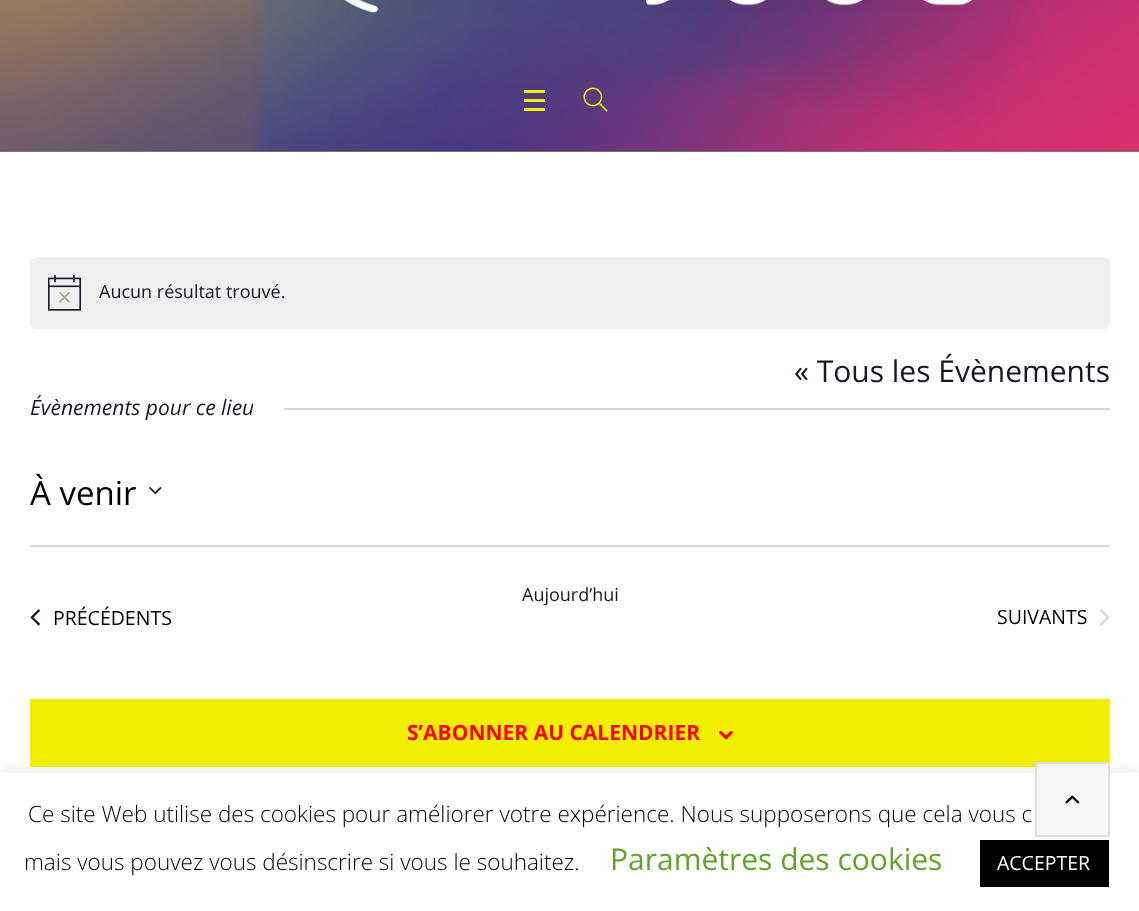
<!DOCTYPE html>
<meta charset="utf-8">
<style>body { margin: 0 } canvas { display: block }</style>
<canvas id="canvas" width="1139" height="911"></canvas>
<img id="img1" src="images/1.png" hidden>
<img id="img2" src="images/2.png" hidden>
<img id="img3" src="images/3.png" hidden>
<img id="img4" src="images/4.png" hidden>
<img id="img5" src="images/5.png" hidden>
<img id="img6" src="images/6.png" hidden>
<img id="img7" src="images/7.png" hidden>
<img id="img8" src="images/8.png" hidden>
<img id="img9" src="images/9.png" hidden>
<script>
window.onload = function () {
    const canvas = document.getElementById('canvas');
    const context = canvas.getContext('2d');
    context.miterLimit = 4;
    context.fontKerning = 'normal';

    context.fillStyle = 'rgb(255, 255, 255)';
    context.fillRect(0, 0, 1139, 911);
    context.fillStyle = 'rgb(115, 115, 115)';
    context.fillRect(0, 0, 1139, 152);
    context.drawImage(document.getElementById('img1'), 0, 0, 1139, 151);
    context.drawImage(document.getElementById('img2'), 342, 0, 632, 14);
    context.fillStyle = 'rgb(242, 238, 4)';
    context.fillRect(524, 90, 21, 3);
    context.fillRect(524, 99, 21, 3);
    context.fillRect(524, 108, 21, 3);
    context.drawImage(document.getElementById('img3'), 583, 87, 25, 25);
    context.fillStyle = 'rgb(239, 239, 240)';
    context.beginPath();
    context.roundRect(30, 257, 1080, 72, 6);
    context.fill();
    context.drawImage(document.getElementById('img4'), 48, 275, 33, 36);
    context.fillStyle = 'rgb(213, 213, 213)';
    context.fillRect(284, 408, 826, 2);
    context.drawImage(document.getElementById('img5'), 149, 486, 13, 9);
    context.fillRect(30, 545, 1080, 2);
    context.drawImage(document.getElementById('img6'), 30, 609, 11, 17);
    context.drawImage(document.getElementById('img7'), 1100, 609, 10, 17);
    context.fillStyle = 'rgb(242, 238, 4)';
    context.fillRect(30, 699, 1080, 68);
    context.drawImage(document.getElementById('img8'), 719, 731, 15, 9);
    context.save();
    context.beginPath();
    context.rect(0, 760, 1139, 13);
    context.clip();
    context.fillStyle = 'rgba(172, 171, 171, 0.3)';
    context.filter = 'blur(7.5px)';
    context.beginPath();
    context.rect(0, 771, 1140, 140);
    context.fill();
    context.filter = 'none';
    context.restore();
    context.fillStyle = 'rgb(247, 247, 247)';
    context.beginPath();
    context.rect(1036, 763, 73, 73);
    context.fill();
    context.strokeStyle = 'rgb(222, 222, 222)';
    context.lineWidth = 2;
    context.stroke();
    context.drawImage(document.getElementById('img9'), 1065, 795, 15, 9);
    context.fillStyle = 'rgb(0, 0, 0)';
    context.fillRect(980, 840, 129, 47);
    context.font = '18px Open Sans';
    context.fillStyle = 'rgb(20, 24, 39)';
    context.fillText('Aucun résultat trouvé.', 99, 298);
    context.font = '30px Open Sans';
    context.fillText('« Tous les Évènements', 794, 382);
    context.font = 'italic 21px Open Sans';
    context.fillText('Évènements pour ce lieu', 30, 415);
    context.font = '33px Open Sans';
    context.fillStyle = 'rgb(0, 0, 0)';
    context.fillText('À venir', 30, 505);
    context.font = '18px Open Sans';
    context.fillStyle = 'rgb(20, 24, 39)';
    context.fillText('Aujourd’hui', 522, 601);
    context.font = '19.5px Open Sans';
    context.fillStyle = 'rgb(0, 0, 0)';
    context.fillText('PRÉCÉDENTS', 53, 625);
    context.fillText('SUIVANTS', 997, 624);
    context.font = 'bold 21px Open Sans';
    context.fillStyle = 'rgb(255, 0, 0)';
    context.fillText('S’ABONNER AU CALENDRIER', 407, 740);
    context.font = '300 22.5px Open Sans';
    context.fillStyle = 'rgb(0, 0, 0)';
    context.fillText('Ce site Web utilise des cookies pour améliorer votre expérience. Nous supposerons que cela vous c', 28, 822);
    context.fillText('mais vous pouvez vous désinscrire si vous le souhaitez.', 24, 870);
    context.font = '30px Open Sans';
    context.fillStyle = 'rgb(98, 163, 41)';
    context.fillText('Paramètres des cookies', 610, 870);
    context.font = '19.5px Open Sans';
    context.fillStyle = 'rgb(255, 255, 255)';
    context.fillText('ACCEPTER', 997, 870);
};
</script>
